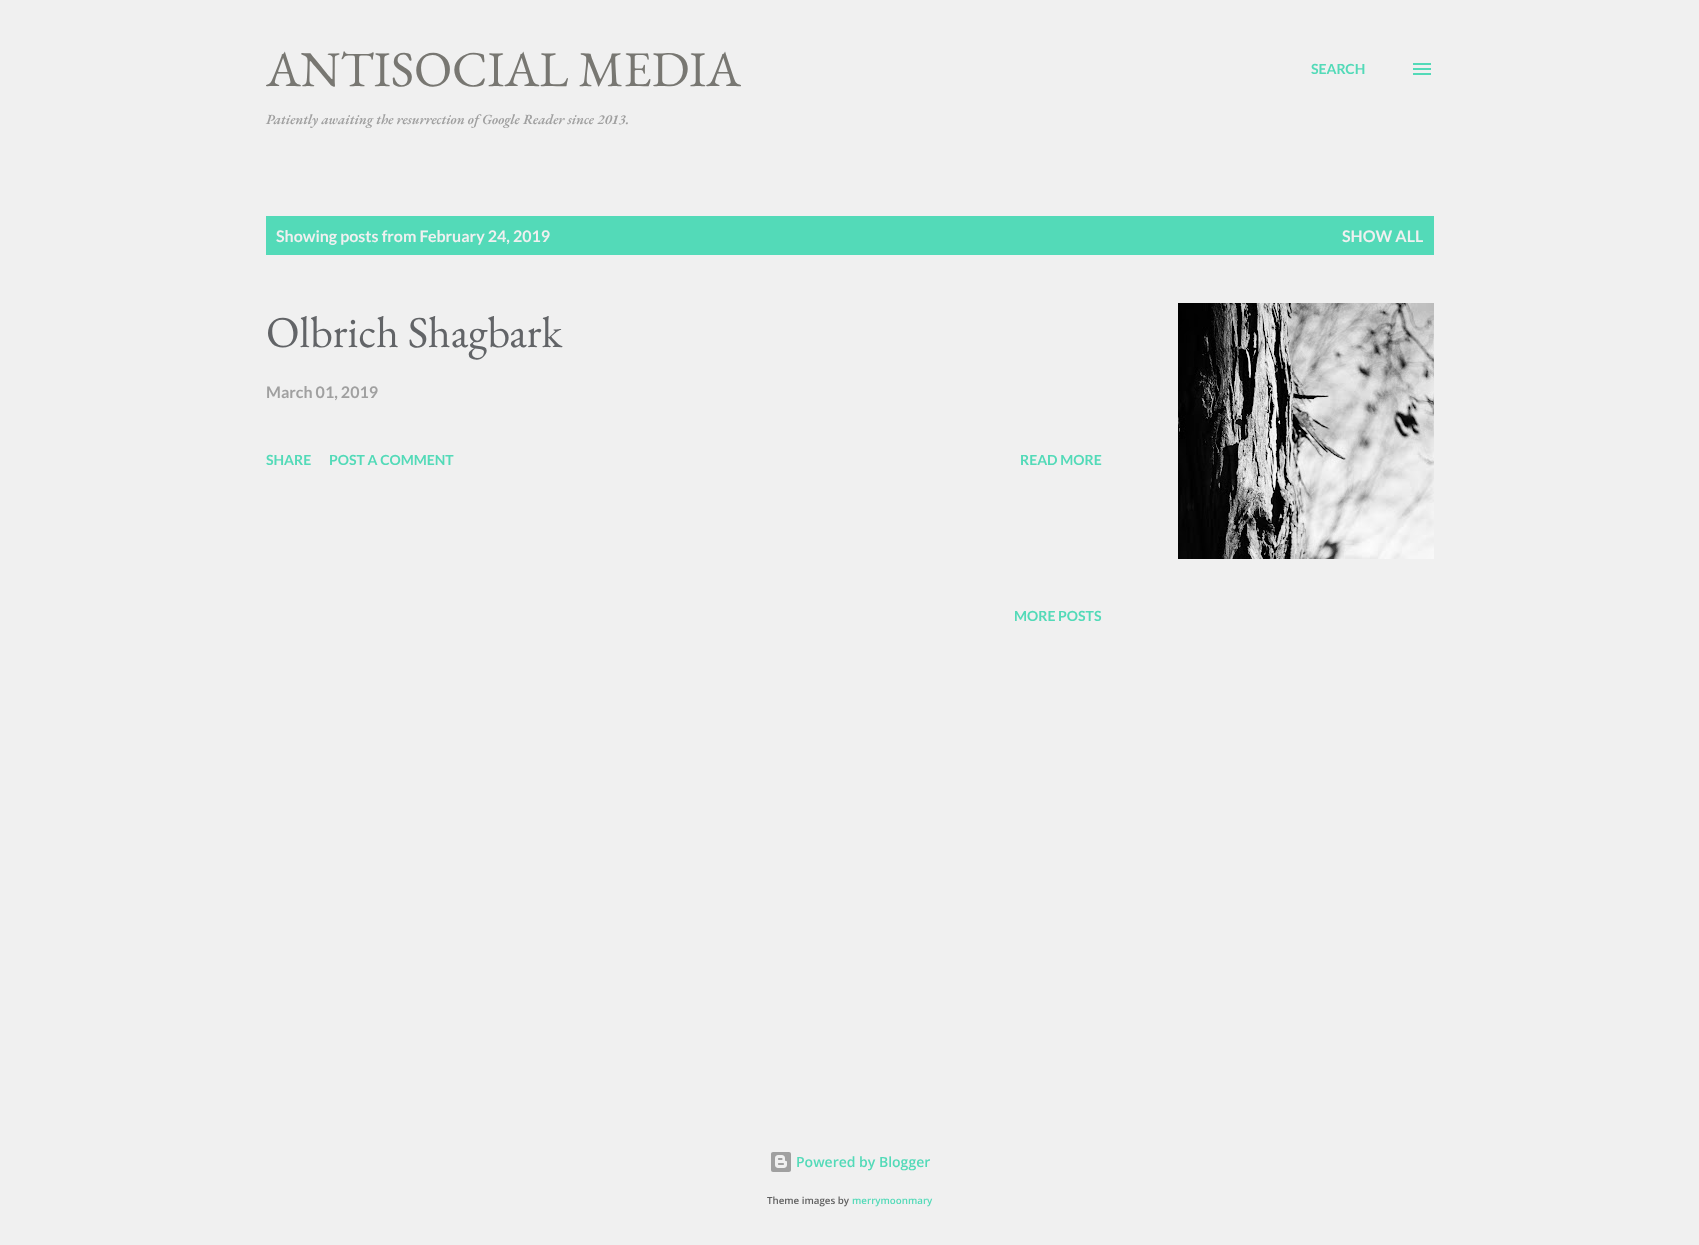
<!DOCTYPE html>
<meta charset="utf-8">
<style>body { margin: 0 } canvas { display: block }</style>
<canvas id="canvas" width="1699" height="1245"></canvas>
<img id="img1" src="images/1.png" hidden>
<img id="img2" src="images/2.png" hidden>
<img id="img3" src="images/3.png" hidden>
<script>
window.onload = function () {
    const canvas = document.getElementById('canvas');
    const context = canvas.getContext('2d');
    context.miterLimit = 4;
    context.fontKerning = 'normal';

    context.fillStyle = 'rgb(240, 240, 240)';
    context.fillRect(0, 0, 1699, 1245);
    context.drawImage(document.getElementById('img1'), 1413, 63, 18, 12);
    context.fillStyle = 'rgb(83, 218, 184)';
    context.fillRect(266, 216, 1168, 39);
    context.drawImage(document.getElementById('img2'), 1178, 303, 256, 256);
    context.drawImage(document.getElementById('img3'), 771, 1152, 20, 20);
    context.font = '50px EB Garamond';
    context.fillStyle = 'rgb(120, 119, 114)';
    context.fillText('ANTISOCIAL MEDIA', 266, 86);
    context.font = 'italic 600 14px EB Garamond';
    context.fillStyle = 'rgb(160, 160, 160)';
    context.fillText('Patiently awaiting the resurrection of Google Reader since 2013.', 266, 124);
    context.font = 'bold 14px Lato';
    context.fillStyle = 'rgb(83, 218, 184)';
    context.fillText('SEARCH', 1311, 74);
    context.font = 'bold 16px Lato';
    context.fillStyle = 'rgb(240, 240, 240)';
    context.fillText('Showing posts from February 24, 2019', 276, 242);
    context.fillText('SHOW ALL', 1342, 242);
    context.font = '44px EB Garamond';
    context.fillStyle = 'rgb(98, 100, 103)';
    context.fillText('Olbrich Shagbark', 266, 347);
    context.font = 'bold 16px Lato';
    context.fillStyle = 'rgb(160, 160, 160)';
    context.fillText('March 01, 2019', 266, 398);
    context.font = 'bold 14px Lato';
    context.fillStyle = 'rgb(83, 218, 184)';
    context.fillText('SHARE', 266, 465);
    context.fillText('POST A COMMENT', 329, 465);
    context.fillText('READ MORE', 1020, 465);
    context.fillText('MORE POSTS', 1014, 621);
    context.font = '600 14px Open Sans';
    context.fillText('Powered by Blogger', 796, 1167);
    context.font = '600 9.75px Open Sans';
    context.fillStyle = 'rgb(95, 95, 95)';
    context.fillText('Theme images by', 767, 1204);
    context.fillStyle = 'rgb(83, 218, 184)';
    context.fillText('merrymoonmary', 852, 1204);
};
</script>
